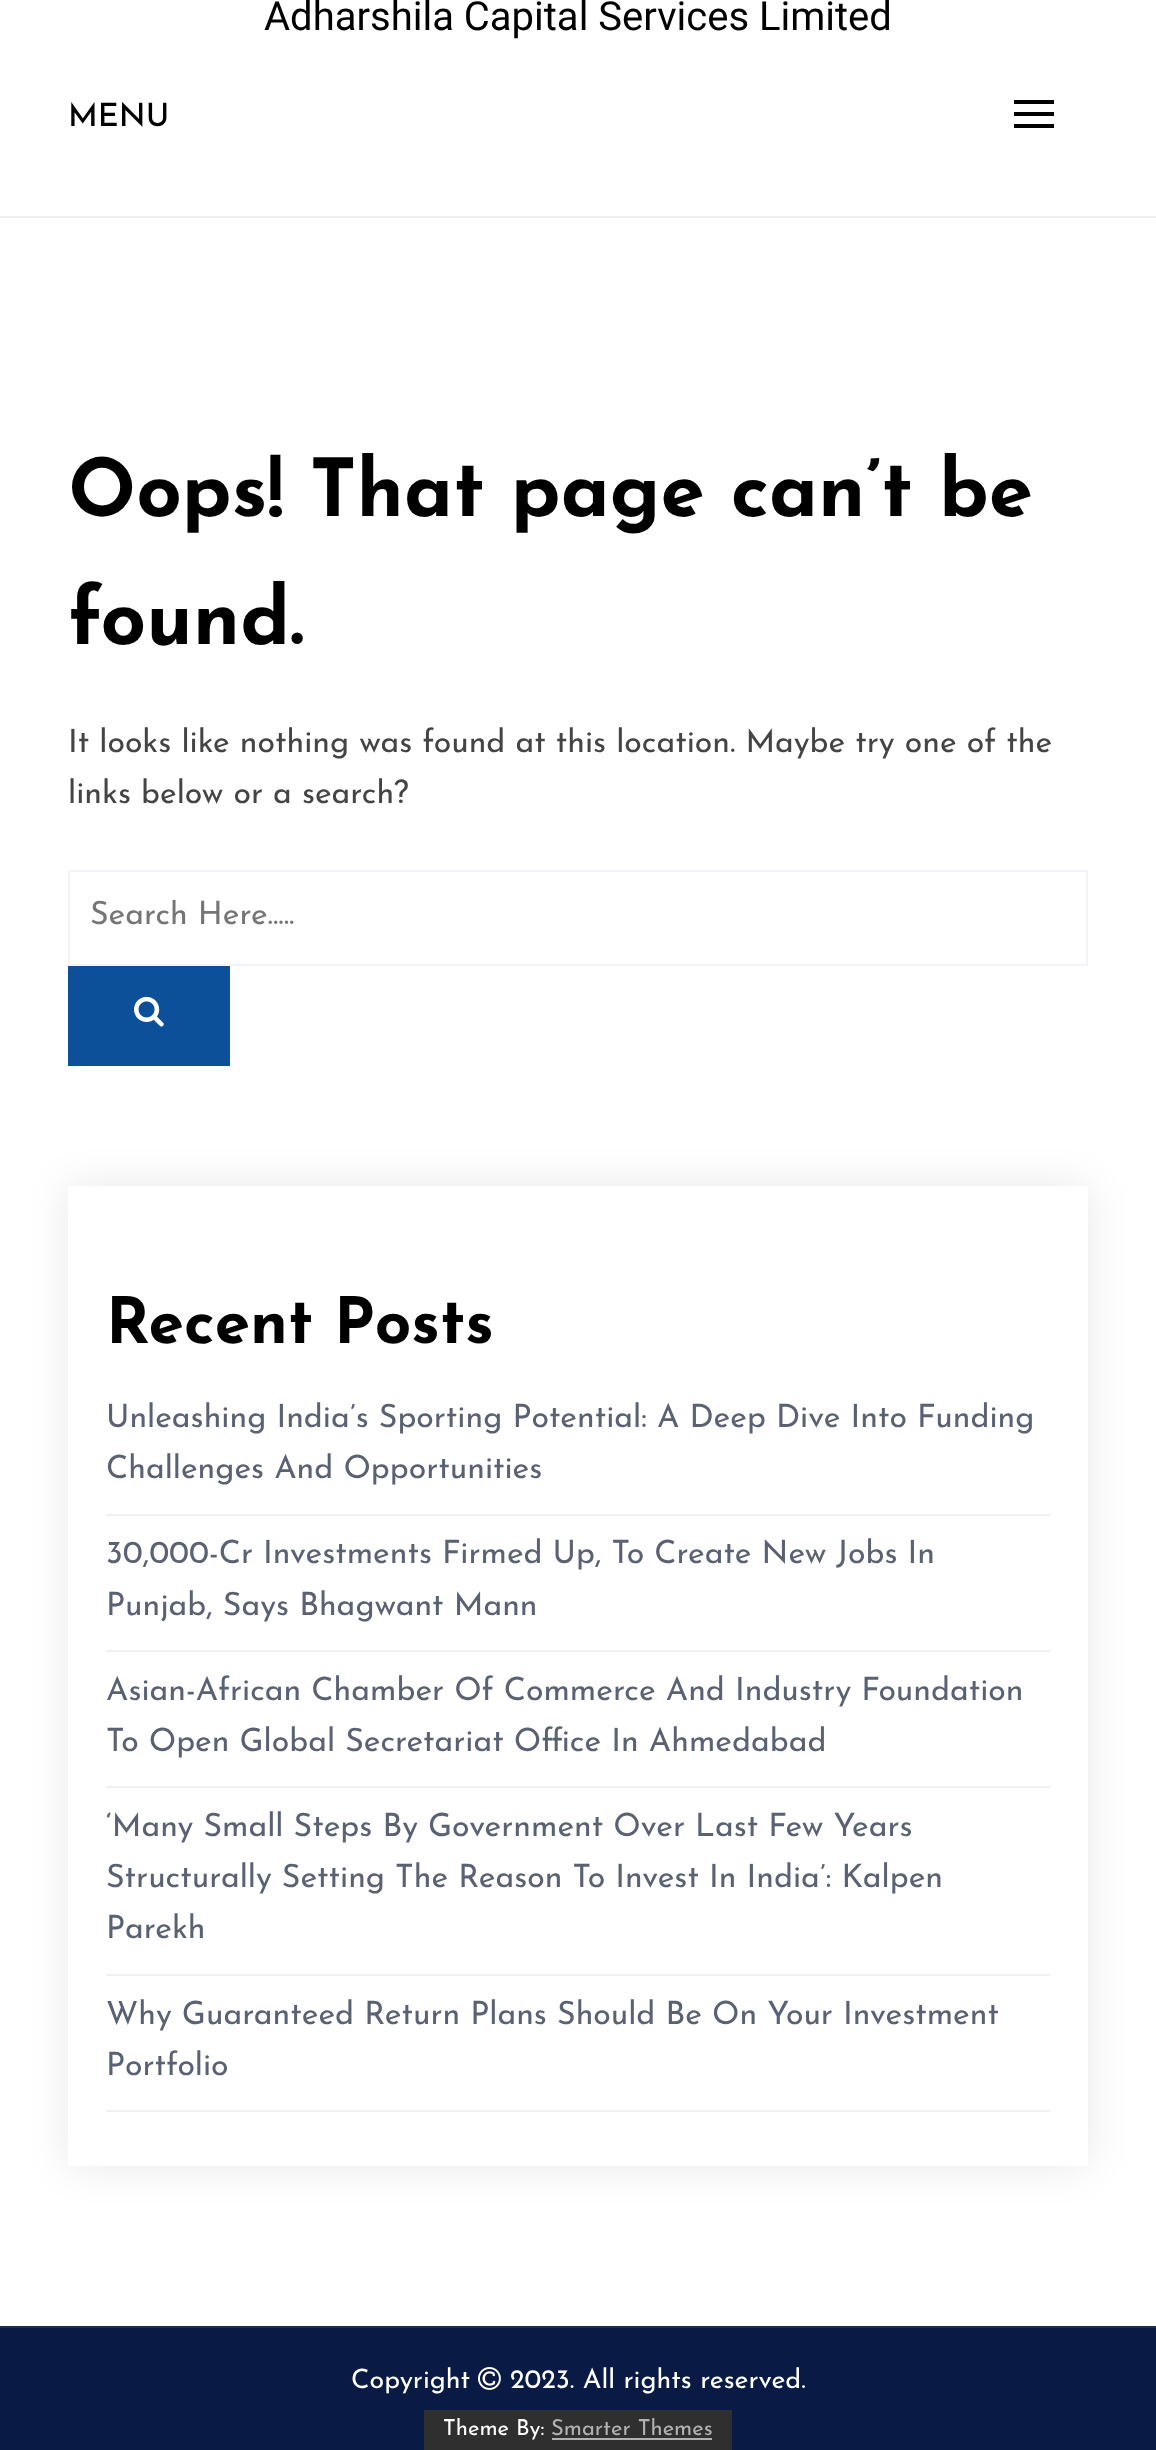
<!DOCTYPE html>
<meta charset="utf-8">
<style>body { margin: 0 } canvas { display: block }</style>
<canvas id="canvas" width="1156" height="2450"></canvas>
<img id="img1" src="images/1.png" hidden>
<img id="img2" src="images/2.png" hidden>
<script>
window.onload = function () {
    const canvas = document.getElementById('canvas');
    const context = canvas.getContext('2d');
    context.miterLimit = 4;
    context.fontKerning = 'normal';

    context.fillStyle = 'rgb(255, 255, 255)';
    context.fillRect(0, 0, 1156, 2450);
    context.fillStyle = 'rgb(238, 238, 238)';
    context.fillRect(0, 216, 1156, 2);
    context.fillStyle = 'rgb(0, 0, 0)';
    context.fillRect(1014, 100, 40, 4);
    context.fillRect(1014, 112, 40, 4);
    context.fillRect(1014, 124, 40, 4);
    context.strokeStyle = 'rgb(243, 243, 248)';
    context.lineWidth = 2;
    context.strokeRect(69, 871, 1018, 94);
    context.fillStyle = 'rgb(12, 80, 153)';
    context.fillRect(68, 966, 162, 100);
    context.drawImage(document.getElementById('img1'), 134, 996, 30, 31);
    context.save();
    context.beginPath();
    context.moveTo(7, 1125);
    context.lineTo(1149, 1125);
    context.lineTo(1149, 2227);
    context.lineTo(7, 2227);
    context.closePath();
    context.moveTo(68, 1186);
    context.lineTo(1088, 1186);
    context.lineTo(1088, 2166);
    context.lineTo(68, 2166);
    context.closePath();
    context.clip('evenodd');
    context.fillStyle = 'rgba(0, 0, 0, 0.09)';
    context.filter = 'blur(20px)';
    context.beginPath();
    context.rect(68, 1186, 1020, 980);
    context.fill();
    context.filter = 'none';
    context.restore();
    context.fillStyle = 'rgb(241, 241, 241)';
    context.fillRect(106, 1514, 944, 2);
    context.fillRect(106, 1650, 944, 2);
    context.fillRect(106, 1786, 944, 2);
    context.fillRect(106, 1974, 944, 2);
    context.fillRect(106, 2110, 944, 2);
    context.fillStyle = 'rgb(9, 26, 68)';
    context.fillRect(0, 2328, 1156, 122);
    context.fillStyle = 'rgb(30, 46, 83)';
    context.fillRect(0, 2326, 1156, 2);
    context.drawImage(document.getElementById('img2'), 478, 2367, 23, 23);
    context.fillStyle = 'rgb(48, 47, 47)';
    context.fillRect(424, 2410, 308, 40);
    context.fillStyle = 'rgb(177, 177, 177)';
    context.fillRect(552, 2438, 160, 2);
    context.font = '40px Roboto';
    context.fillStyle = 'rgb(0, 0, 0)';
    context.fillText('Adharshila Capital Services Limited', 264, 30);
    context.font = '500 32px Josefin Sans';
    context.fillText('MENU', 68, 126);
    context.font = 'bold 80px Josefin Sans';
    context.fillText('Oops! That page can’t be', 68, 516);
    context.fillText('found.', 68, 644);
    context.font = '32px Josefin Sans';
    context.fillStyle = 'rgb(68, 68, 68)';
    context.fillText('It looks like nothing was found at this location. Maybe try one of the', 68, 752);
    context.fillText('links below or a search?', 68, 803);
    context.save();
    context.beginPath();
    context.rect(90, 900, 976, 32);
    context.clip();
    context.fillStyle = 'rgb(117, 117, 117)';
    context.fillText('Search Here.....', 90, 924);
    context.restore();
    context.font = 'bold 64px Josefin Sans';
    context.fillStyle = 'rgb(0, 0, 0)';
    context.fillText('Recent Posts', 106, 1343);
    context.font = '32px Josefin Sans';
    context.fillStyle = 'rgb(89, 97, 114)';
    context.fillText('Unleashing India’s Sporting Potential: A Deep Dive Into Funding', 106, 1427);
    context.fillText('Challenges And Opportunities', 106, 1478);
    context.fillText('30,000-Cr Investments Firmed Up, To Create New Jobs In', 106, 1563);
    context.fillText('Punjab, Says Bhagwant Mann', 106, 1615);
    context.fillText('Asian-African Chamber Of Commerce And Industry Foundation', 106, 1700);
    context.fillText('To Open Global Secretariat Office In Ahmedabad', 106, 1751);
    context.fillText('‘Many Small Steps By Government Over Last Few Years', 106, 1836);
    context.fillText('Structurally Setting The Reason To Invest In India’: Kalpen', 106, 1887);
    context.fillText('Parekh', 106, 1938);
    context.fillText('Why Guaranteed Return Plans Should Be On Your Investment', 106, 2024);
    context.fillText('Portfolio', 106, 2075);
    context.font = '26.75px Josefin Sans';
    context.fillStyle = 'rgb(255, 255, 255)';
    context.fillText('Copyright', 351, 2388);
    context.fillText('2023. All rights reserved.', 510, 2388);
    context.font = '22px Josefin Sans';
    context.fillText('Theme By:', 443, 2435);
    context.fillStyle = 'rgb(177, 177, 177)';
    context.fillText('Smarter Themes', 551, 2435);
};
</script>
